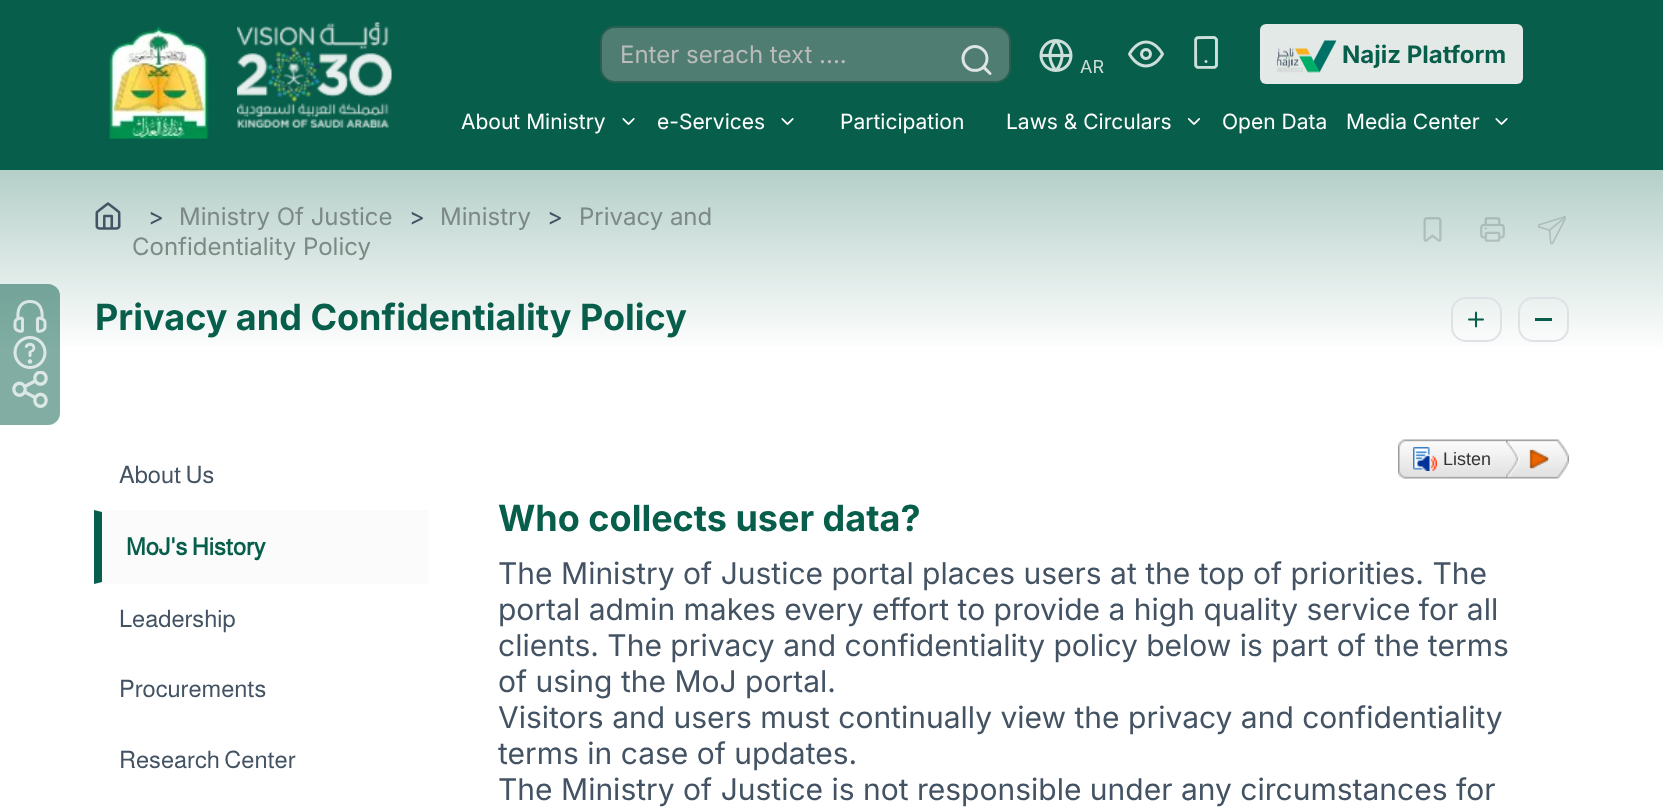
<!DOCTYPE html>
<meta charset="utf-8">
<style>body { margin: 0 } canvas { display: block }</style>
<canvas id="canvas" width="1663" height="811"></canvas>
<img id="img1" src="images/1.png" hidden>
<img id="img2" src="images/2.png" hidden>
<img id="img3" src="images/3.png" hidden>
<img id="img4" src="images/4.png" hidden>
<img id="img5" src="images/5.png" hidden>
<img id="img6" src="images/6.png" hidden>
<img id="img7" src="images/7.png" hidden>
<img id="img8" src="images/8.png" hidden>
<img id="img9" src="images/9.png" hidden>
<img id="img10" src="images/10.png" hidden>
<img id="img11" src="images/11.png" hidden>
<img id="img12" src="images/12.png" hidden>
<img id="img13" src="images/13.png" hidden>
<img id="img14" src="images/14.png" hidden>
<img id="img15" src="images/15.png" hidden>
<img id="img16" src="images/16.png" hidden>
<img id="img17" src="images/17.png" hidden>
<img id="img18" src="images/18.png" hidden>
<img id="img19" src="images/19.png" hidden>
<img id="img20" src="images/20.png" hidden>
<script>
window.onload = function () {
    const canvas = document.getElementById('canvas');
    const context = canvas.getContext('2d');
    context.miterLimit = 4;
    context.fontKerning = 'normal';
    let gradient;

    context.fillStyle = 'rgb(255, 255, 255)';
    context.fillRect(0, 0, 1663, 811);
    context.fillStyle = 'rgb(7, 94, 74)';
    context.fillRect(0, 0, 1663, 170);
    context.drawImage(document.getElementById('img1'), 109, 26, 100, 113);
    context.drawImage(document.getElementById('img2'), 237, 22, 155, 106);
    context.fillStyle = 'rgb(80, 125, 114)';
    context.beginPath();
    context.roundRect(601, 27, 409, 55, 14);
    context.fill();
    context.strokeStyle = 'rgb(43, 95, 82)';
    context.lineWidth = 2;
    context.stroke();
    context.drawImage(document.getElementById('img3'), 961, 45, 31, 30);
    context.drawImage(document.getElementById('img4'), 1039, 39, 34, 33);
    context.drawImage(document.getElementById('img5'), 1128, 40, 36, 28);
    context.drawImage(document.getElementById('img6'), 1194, 36, 24, 33);
    context.fillStyle = 'rgb(227, 233, 231)';
    context.beginPath();
    context.roundRect(1260, 24, 263, 60, 6);
    context.fill();
    context.drawImage(document.getElementById('img7'), 1277, 40, 60, 33);
    context.drawImage(document.getElementById('img8'), 622, 118, 13, 7);
    context.drawImage(document.getElementById('img8'), 781, 118, 13, 7);
    context.drawImage(document.getElementById('img9'), 1187, 118, 14, 7);
    context.drawImage(document.getElementById('img8'), 1495, 118, 13, 7);
    gradient = context.createLinearGradient(832, 165, 832, 353);
    gradient.addColorStop(0, 'rgb(179, 206, 199)');
    gradient.addColorStop(1, 'rgb(255, 255, 255)');
    context.fillStyle = gradient;
    context.fillRect(0, 170, 1663, 177);
    context.fillStyle = 'rgba(7, 94, 74, 0.51)';
    context.beginPath();
    context.roundRect(0, 284, 60, 141, [0, 12, 12, 0]);
    context.fill();
    context.drawImage(document.getElementById('img10'), 13, 300, 34, 33);
    context.drawImage(document.getElementById('img11'), 13, 336, 34, 33);
    context.drawImage(document.getElementById('img12'), 12, 371, 36, 37);
    context.drawImage(document.getElementById('img13'), 95, 202, 26, 28);
    context.drawImage(document.getElementById('img14'), 1423, 217, 19, 25);
    context.drawImage(document.getElementById('img15'), 1480, 217, 25, 25);
    context.drawImage(document.getElementById('img16'), 1538, 216, 28, 29);
    context.beginPath();
    context.roundRect(1452, 298, 49, 43, 14);
    context.strokeStyle = 'rgb(222, 226, 230)';
    context.stroke();
    context.drawImage(document.getElementById('img17'), 1468, 311, 16, 17);
    context.beginPath();
    context.roundRect(1519, 298, 49, 43, 14);
    context.stroke();
    context.fillStyle = 'rgb(7, 94, 74)';
    context.fillRect(1535, 318, 17, 3);
    context.fillStyle = 'rgb(250, 251, 250)';
    context.fillRect(95, 510, 334, 74);
    context.fillStyle = 'rgb(7, 94, 74)';
    context.beginPath();
    context.moveTo(94, 584);
    context.lineTo(94, 510);
    context.lineTo(102, 512);
    context.lineTo(102, 582);
    context.closePath();
    context.fill();
    context.drawImage(document.getElementById('img18'), 1398, 439, 108, 40);
    context.drawImage(document.getElementById('img19'), 1413, 447, 24, 24);
    context.drawImage(document.getElementById('img20'), 1506, 439, 63, 40);
    context.font = '24px Inter';
    context.fillStyle = 'rgb(186, 187, 186)';
    context.fillText('Enter serach text ....', 620, 63);
    context.font = '18px Inter';
    context.fillStyle = 'rgb(205, 223, 219)';
    context.fillText('AR', 1080, 73);
    context.font = 'bold 24px Inter';
    context.fillStyle = 'rgb(7, 94, 74)';
    context.fillText('Najiz Platform', 1342, 63);
    context.font = '21px Inter';
    context.fillStyle = 'rgb(255, 255, 255)';
    context.fillText('About Ministry', 461, 129);
    context.fillText('e-Services', 657, 129);
    context.fillText('Participation', 840, 129);
    context.fillText('Laws & Circulars', 1006, 129);
    context.fillText('Open Data', 1222, 129);
    context.fillText('Media Center', 1346, 129);
    context.font = '24px Inter';
    context.fillStyle = 'rgb(67, 83, 99)';
    context.fillText('>', 148, 225);
    context.fillStyle = 'rgb(124, 137, 133)';
    context.fillText('Ministry Of Justice', 179, 225);
    context.fillStyle = 'rgb(67, 83, 99)';
    context.fillText('>', 409, 225);
    context.fillStyle = 'rgb(124, 137, 133)';
    context.fillText('Ministry', 440, 225);
    context.fillStyle = 'rgb(67, 83, 99)';
    context.fillText('>', 547, 225);
    context.fillStyle = 'rgb(124, 137, 133)';
    context.fillText('Privacy and', 579, 225);
    context.fillText('Confidentiality Policy', 132, 255);
    context.font = 'bold 36px Inter';
    context.fillStyle = 'rgb(7, 94, 74)';
    context.fillText('Privacy and Confidentiality Policy', 95, 330);
    context.font = '24px Almarai';
    context.fillStyle = 'rgb(67, 83, 99)';
    context.fillText('About Us', 119, 483);
    context.font = 'bold 24px Almarai';
    context.fillStyle = 'rgb(7, 94, 74)';
    context.fillText('MoJ\'s History', 126, 555);
    context.font = '24px Almarai';
    context.fillStyle = 'rgb(67, 83, 99)';
    context.fillText('Leadership', 119, 627);
    context.fillText('Procurements', 119, 697);
    context.fillText('Research Center', 119, 768);
    context.font = '18px Liberation Sans';
    context.fillStyle = 'rgb(51, 51, 51)';
    context.fillText('Listen', 1443, 465);
    context.font = 'bold 36px Inter';
    context.fillStyle = 'rgb(7, 94, 74)';
    context.fillText('Who collects user data?', 498, 531);
    context.font = '30px Inter';
    context.fillStyle = 'rgb(67, 83, 99)';
    context.fillText('The Ministry of Justice portal places users at the top of priorities. The', 498, 584);
    context.fillText('portal admin makes every effort to provide a high quality service for all', 498, 620);
    context.fillText('clients. The privacy and confidentiality policy below is part of the terms', 498, 656);
    context.fillText('of using the MoJ portal.', 498, 692);
    context.fillText('Visitors and users must continually view the privacy and confidentiality', 498, 728);
    context.fillText('terms in case of updates.', 498, 764);
    context.fillText('The Ministry of Justice is not responsible under any circumstances for', 498, 800);
};
</script>
